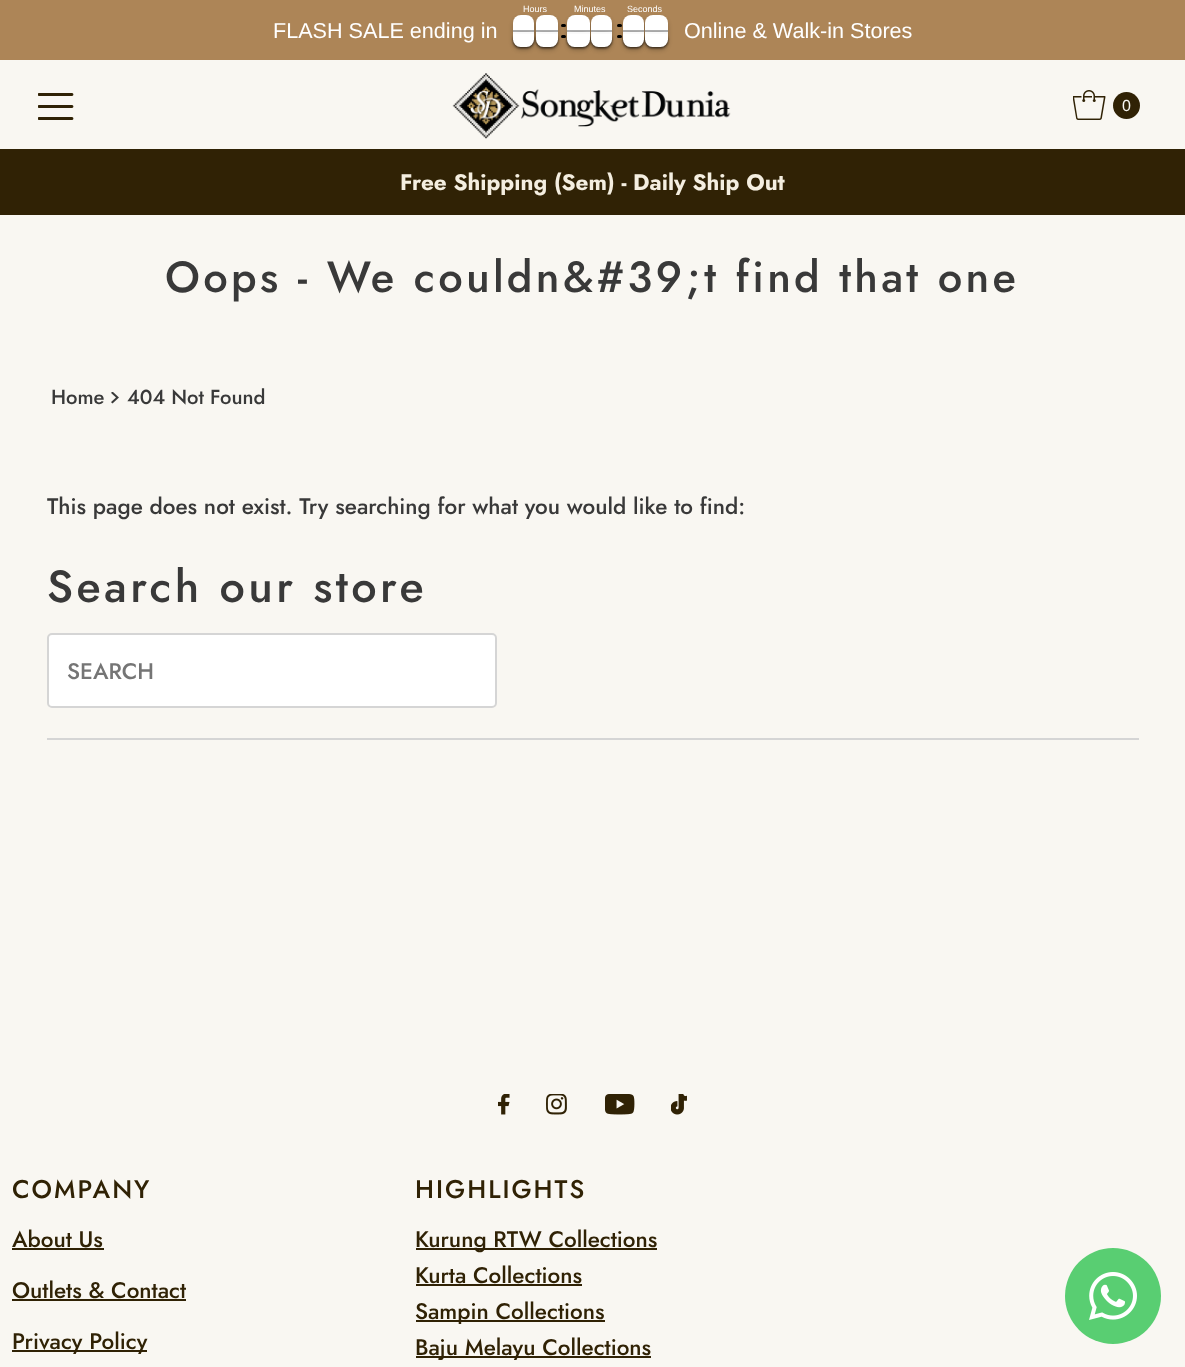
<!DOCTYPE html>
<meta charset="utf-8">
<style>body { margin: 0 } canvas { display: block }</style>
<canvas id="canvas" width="1185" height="1367"></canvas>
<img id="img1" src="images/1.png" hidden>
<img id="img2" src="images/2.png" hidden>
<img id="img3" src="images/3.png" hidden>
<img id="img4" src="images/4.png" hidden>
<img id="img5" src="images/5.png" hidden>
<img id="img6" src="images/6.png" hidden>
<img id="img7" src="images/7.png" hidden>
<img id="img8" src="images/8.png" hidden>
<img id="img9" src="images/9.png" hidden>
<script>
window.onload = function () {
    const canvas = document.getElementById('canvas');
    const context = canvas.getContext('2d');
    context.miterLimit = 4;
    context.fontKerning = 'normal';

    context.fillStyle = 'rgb(249, 247, 242)';
    context.fillRect(0, 0, 1185, 1367);
    context.fillStyle = 'rgb(173, 133, 87)';
    context.fillRect(0, 0, 1185, 60);
    context.fillStyle = 'rgba(0, 0, 0, 0.24)';
    context.filter = 'blur(2px)';
    context.beginPath();
    context.roundRect(513, 18, 21, 32, 8);
    context.fill();
    context.filter = 'none';
    context.fillStyle = 'rgba(0, 0, 0, 0.4)';
    context.filter = 'blur(1px)';
    context.beginPath();
    context.roundRect(513, 33, 21, 15, 7.5);
    context.fill();
    context.filter = 'none';
    context.fillStyle = 'rgba(0, 0, 0, 0.24)';
    context.filter = 'blur(2px)';
    context.beginPath();
    context.roundRect(536, 18, 22, 32, 8);
    context.fill();
    context.filter = 'none';
    context.fillStyle = 'rgb(0, 0, 0)';
    context.beginPath();
    context.roundRect(561, 35, 5, 3, 1.5);
    context.fill();
    context.fillStyle = 'rgba(0, 0, 0, 0.4)';
    context.filter = 'blur(1px)';
    context.beginPath();
    context.roundRect(536, 33, 22, 15, 7.5);
    context.fill();
    context.filter = 'none';
    context.fillStyle = 'rgb(255, 255, 255)';
    context.beginPath();
    context.roundRect(513, 15, 21, 17, [8, 8, 0, 0]);
    context.fill();
    context.fillStyle = 'rgba(51, 51, 51, 0.4)';
    context.fillRect(513, 30, 21, 2);
    context.fillStyle = 'rgba(0, 0, 0, 0.4)';
    context.filter = 'blur(1px)';
    context.beginPath();
    context.roundRect(513, 33, 21, 15, 7.5);
    context.fill();
    context.filter = 'none';
    context.fillStyle = 'rgb(255, 255, 255)';
    context.beginPath();
    context.roundRect(513, 32, 21, 15, [0, 0, 7.5, 7.5]);
    context.fill();
    context.fillStyle = 'rgba(204, 204, 204, 0.1)';
    context.fillRect(513, 32, 21, 2);
    context.fillStyle = 'rgb(255, 255, 255)';
    context.beginPath();
    context.roundRect(536, 15, 22, 17, [8, 8, 0, 0]);
    context.fill();
    context.fillStyle = 'rgba(51, 51, 51, 0.4)';
    context.fillRect(536, 30, 22, 2);
    context.fillStyle = 'rgba(0, 0, 0, 0.4)';
    context.filter = 'blur(1px)';
    context.beginPath();
    context.roundRect(536, 33, 22, 15, 7.5);
    context.fill();
    context.filter = 'none';
    context.fillStyle = 'rgb(255, 255, 255)';
    context.beginPath();
    context.roundRect(536, 32, 22, 15, [0, 0, 7.5, 7.5]);
    context.fill();
    context.fillStyle = 'rgba(204, 204, 204, 0.1)';
    context.fillRect(536, 32, 22, 2);
    context.fillStyle = 'rgb(0, 0, 0)';
    context.beginPath();
    context.roundRect(561, 24, 5, 3, 1.5);
    context.fill();
    context.fillStyle = 'rgba(0, 0, 0, 0.24)';
    context.filter = 'blur(2px)';
    context.beginPath();
    context.roundRect(567, 18, 23, 32, 8);
    context.fill();
    context.filter = 'none';
    context.fillStyle = 'rgba(0, 0, 0, 0.4)';
    context.filter = 'blur(1px)';
    context.beginPath();
    context.roundRect(567, 33, 23, 15, 7.5);
    context.fill();
    context.filter = 'none';
    context.fillStyle = 'rgba(0, 0, 0, 0.24)';
    context.filter = 'blur(2px)';
    context.beginPath();
    context.roundRect(591, 18, 21, 32, 8);
    context.fill();
    context.filter = 'none';
    context.fillStyle = 'rgba(0, 0, 0, 0.4)';
    context.filter = 'blur(1px)';
    context.beginPath();
    context.roundRect(591, 33, 21, 15, 7.5);
    context.fill();
    context.filter = 'none';
    context.fillStyle = 'rgb(255, 255, 255)';
    context.beginPath();
    context.roundRect(567, 15, 23, 17, [8, 8, 0, 0]);
    context.fill();
    context.fillStyle = 'rgba(51, 51, 51, 0.4)';
    context.fillRect(567, 30, 23, 2);
    context.fillStyle = 'rgba(0, 0, 0, 0.4)';
    context.filter = 'blur(1px)';
    context.beginPath();
    context.roundRect(567, 33, 23, 15, 7.5);
    context.fill();
    context.filter = 'none';
    context.fillStyle = 'rgb(255, 255, 255)';
    context.beginPath();
    context.roundRect(567, 32, 23, 15, [0, 0, 7.5, 7.5]);
    context.fill();
    context.fillStyle = 'rgba(204, 204, 204, 0.1)';
    context.fillRect(567, 32, 23, 2);
    context.fillStyle = 'rgb(255, 255, 255)';
    context.beginPath();
    context.roundRect(591, 15, 21, 17, [8, 8, 0, 0]);
    context.fill();
    context.fillStyle = 'rgba(51, 51, 51, 0.4)';
    context.fillRect(591, 30, 21, 2);
    context.fillStyle = 'rgba(0, 0, 0, 0.4)';
    context.filter = 'blur(1px)';
    context.beginPath();
    context.roundRect(591, 33, 21, 15, 7.5);
    context.fill();
    context.filter = 'none';
    context.fillStyle = 'rgb(255, 255, 255)';
    context.beginPath();
    context.roundRect(591, 32, 21, 15, [0, 0, 7.5, 7.5]);
    context.fill();
    context.fillStyle = 'rgba(204, 204, 204, 0.1)';
    context.fillRect(591, 32, 21, 2);
    context.fillStyle = 'rgb(0, 0, 0)';
    context.beginPath();
    context.roundRect(617, 24, 5, 3, 1.5);
    context.fill();
    context.beginPath();
    context.roundRect(617, 35, 5, 3, 1.5);
    context.fill();
    context.fillStyle = 'rgba(0, 0, 0, 0.24)';
    context.filter = 'blur(2px)';
    context.beginPath();
    context.roundRect(623, 18, 21, 32, 8);
    context.fill();
    context.filter = 'none';
    context.fillStyle = 'rgba(0, 0, 0, 0.4)';
    context.filter = 'blur(1px)';
    context.beginPath();
    context.roundRect(623, 33, 21, 15, 7.5);
    context.fill();
    context.filter = 'none';
    context.fillStyle = 'rgba(0, 0, 0, 0.24)';
    context.filter = 'blur(2px)';
    context.beginPath();
    context.roundRect(645, 18, 23, 32, 8);
    context.fill();
    context.filter = 'none';
    context.fillStyle = 'rgba(0, 0, 0, 0.4)';
    context.filter = 'blur(1px)';
    context.beginPath();
    context.roundRect(645, 33, 23, 15, 7.5);
    context.fill();
    context.filter = 'none';
    context.fillStyle = 'rgb(255, 255, 255)';
    context.beginPath();
    context.roundRect(623, 15, 21, 17, [8, 8, 0, 0]);
    context.fill();
    context.fillStyle = 'rgba(51, 51, 51, 0.4)';
    context.fillRect(623, 30, 21, 2);
    context.fillStyle = 'rgba(0, 0, 0, 0.4)';
    context.filter = 'blur(1px)';
    context.beginPath();
    context.roundRect(623, 33, 21, 15, 7.5);
    context.fill();
    context.filter = 'none';
    context.fillStyle = 'rgb(255, 255, 255)';
    context.beginPath();
    context.roundRect(623, 32, 21, 15, [0, 0, 7.5, 7.5]);
    context.fill();
    context.fillStyle = 'rgba(204, 204, 204, 0.1)';
    context.fillRect(623, 32, 21, 2);
    context.fillStyle = 'rgb(255, 255, 255)';
    context.beginPath();
    context.roundRect(645, 15, 23, 17, [8, 8, 0, 0]);
    context.fill();
    context.fillStyle = 'rgba(51, 51, 51, 0.4)';
    context.fillRect(645, 30, 23, 2);
    context.fillStyle = 'rgba(0, 0, 0, 0.4)';
    context.filter = 'blur(1px)';
    context.beginPath();
    context.roundRect(645, 33, 23, 15, 7.5);
    context.fill();
    context.filter = 'none';
    context.fillStyle = 'rgb(255, 255, 255)';
    context.beginPath();
    context.roundRect(645, 32, 23, 15, [0, 0, 7.5, 7.5]);
    context.fill();
    context.fillStyle = 'rgba(204, 204, 204, 0.1)';
    context.fillRect(645, 32, 23, 2);
    context.drawImage(document.getElementById('img1'), 38, 93, 36, 27);
    context.drawImage(document.getElementById('img2'), 452, 73, 279, 66);
    context.drawImage(document.getElementById('img3'), 1073, 90, 33, 30);
    context.fillStyle = 'rgb(48, 34, 5)';
    context.beginPath();
    context.arc(1126.5, 105.5, 13.5, 0, 2 * Math.PI);
    context.fill();
    context.fillRect(0, 149, 1185, 66);
    context.drawImage(document.getElementById('img4'), 111, 392, 8, 12);
    context.fillStyle = 'rgb(213, 213, 213)';
    context.fillRect(47, 738, 1092, 2);
    context.fillStyle = 'rgb(255, 255, 255)';
    context.beginPath();
    context.roundRect(48, 634, 448, 73, 4);
    context.fill();
    context.strokeStyle = 'rgb(213, 213, 213)';
    context.lineWidth = 2;
    context.stroke();
    context.drawImage(document.getElementById('img5'), 498, 1094, 12, 21);
    context.drawImage(document.getElementById('img6'), 546, 1094, 21, 21);
    context.drawImage(document.getElementById('img7'), 605, 1094, 30, 21);
    context.drawImage(document.getElementById('img8'), 671, 1094, 16, 21);
    context.fillStyle = 'rgb(48, 34, 5)';
    context.fillRect(12, 1248, 92, 2);
    context.fillRect(12, 1299, 174, 2);
    context.fillRect(12, 1350, 135, 2);
    context.fillRect(416, 1248, 241, 2);
    context.fillRect(416, 1284, 166, 2);
    context.fillRect(416, 1320, 189, 2);
    context.fillRect(416, 1356, 235, 2);
    context.fillStyle = 'rgb(89, 206, 114)';
    context.beginPath();
    context.arc(1113, 1296, 48, 0, 2 * Math.PI);
    context.fill();
    context.drawImage(document.getElementById('img9'), 1089, 1272, 48, 48);
    context.font = '9px Liberation Sans';
    context.fillStyle = 'rgb(255, 255, 255)';
    context.fillText('Hours', 523, 12);
    context.fillText('Minutes', 574, 12);
    context.fillText('Seconds', 627, 12);
    context.font = '21.6px Liberation Sans';
    context.fillText('FLASH SALE ending in', 273, 38);
    context.fillText('Online & Walk-in Stores', 684, 38);
    context.font = '16px Liberation Sans';
    context.fillStyle = 'rgb(249, 247, 242)';
    context.fillText('0', 1122, 111);
    context.font = 'bold 22.5px Jost';
    context.fillStyle = 'rgb(244, 238, 224)';
    context.fillText('Free Shipping (Sem) - Daily Ship Out', 400, 190);
    context.letterSpacing = '3.25px';
    context.font = '500 43.5px Jost';
    context.fillStyle = 'rgb(57, 57, 57)';
    context.fillText('Oops - We couldn&#39;t find that one', 165, 292);
    context.letterSpacing = '0px';
    context.font = '500 20.25px Jost';
    context.fillText('Home', 51, 404);
    context.fillText('404 Not Found', 127, 404);
    context.font = '500 22.5px Jost';
    context.fillText('This page does not exist. Try searching for what you would like to find:', 47, 514);
    context.letterSpacing = '3.4px';
    context.font = '500 45px Jost';
    context.fillText('Search our store', 47, 602);
    context.letterSpacing = '0px';
    context.font = '500 22.5px Jost';
    context.fillStyle = 'rgb(117, 117, 117)';
    context.fillText('SEARCH', 67, 679);
    context.letterSpacing = '2px';
    context.font = '500 25.5px Jost';
    context.fillStyle = 'rgb(48, 34, 5)';
    context.fillText('COMPANY', 12, 1198);
    context.letterSpacing = '0px';
    context.font = '500 22.5px Jost';
    context.fillText('About Us', 12, 1247);
    context.fillText('Outlets & Contact', 12, 1298);
    context.fillText('Privacy Policy', 12, 1349);
    context.letterSpacing = '2px';
    context.font = '500 25.5px Jost';
    context.fillText('HIGHLIGHTS', 415, 1198);
    context.letterSpacing = '0px';
    context.font = '500 22.5px Jost';
    context.fillText('Kurung RTW Collections', 415, 1247);
    context.fillText('Kurta Collections', 415, 1283);
    context.fillText('Sampin Collections', 415, 1319);
    context.fillText('Baju Melayu Collections', 415, 1355);
};
</script>
